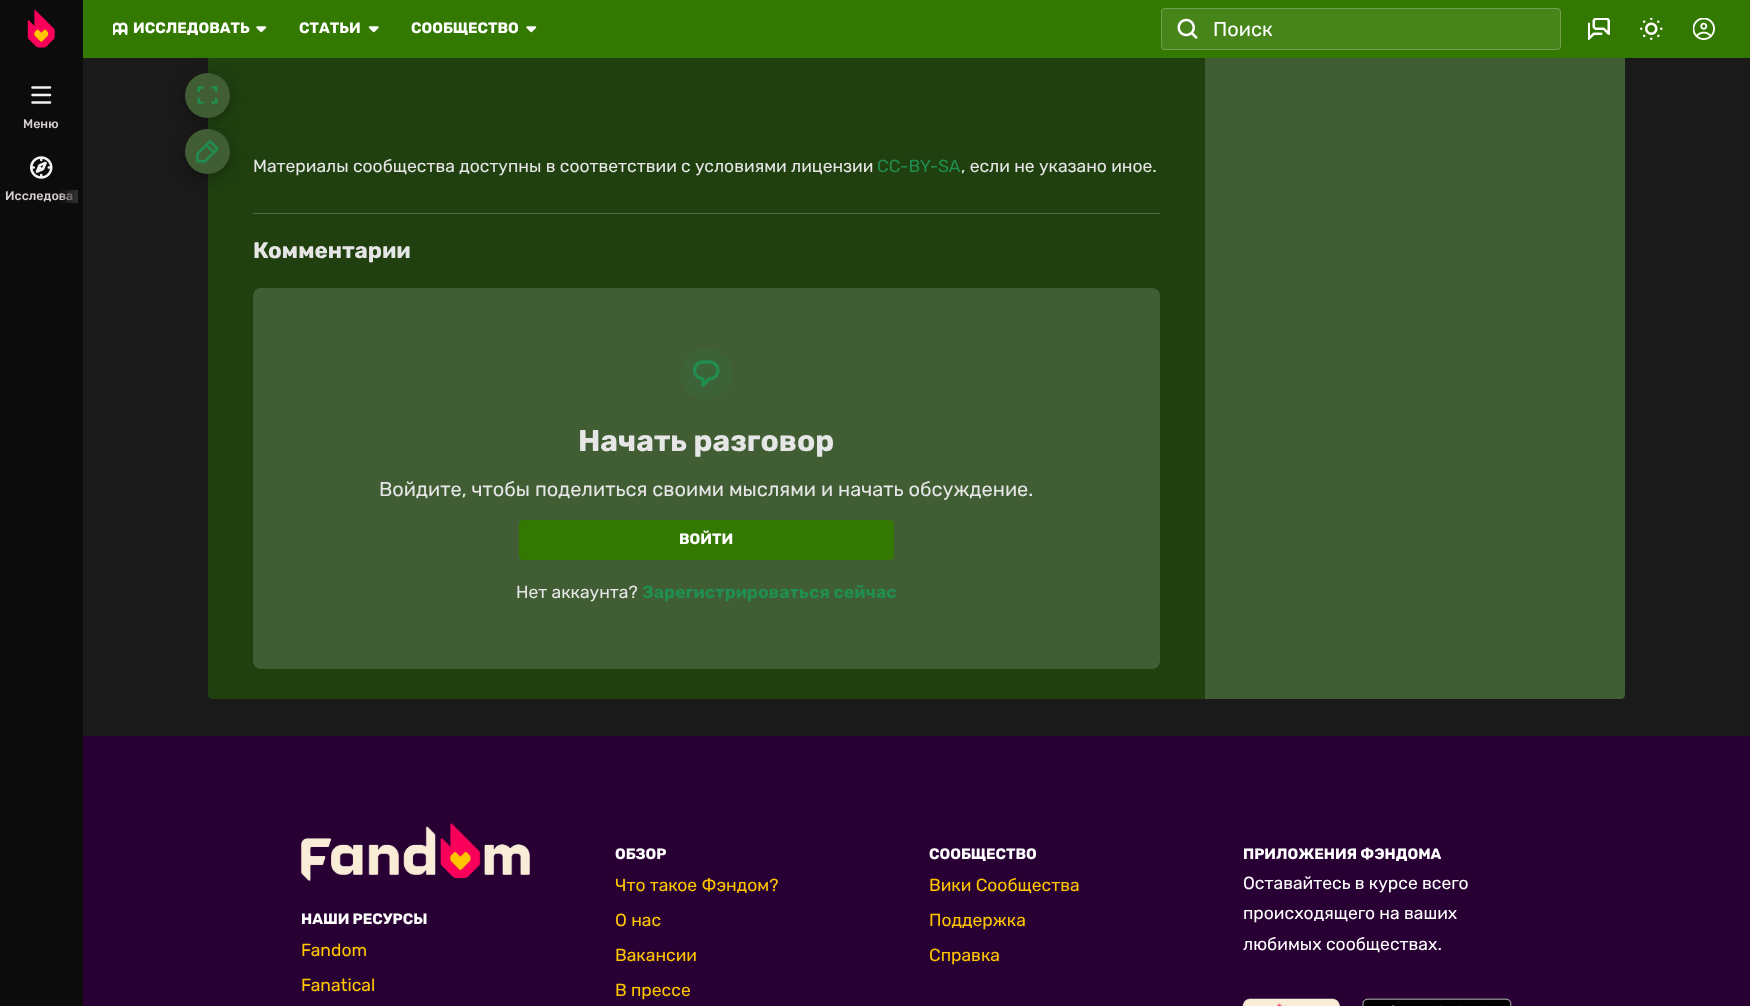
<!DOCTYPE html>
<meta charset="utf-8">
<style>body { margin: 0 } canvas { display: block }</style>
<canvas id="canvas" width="1750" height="1006"></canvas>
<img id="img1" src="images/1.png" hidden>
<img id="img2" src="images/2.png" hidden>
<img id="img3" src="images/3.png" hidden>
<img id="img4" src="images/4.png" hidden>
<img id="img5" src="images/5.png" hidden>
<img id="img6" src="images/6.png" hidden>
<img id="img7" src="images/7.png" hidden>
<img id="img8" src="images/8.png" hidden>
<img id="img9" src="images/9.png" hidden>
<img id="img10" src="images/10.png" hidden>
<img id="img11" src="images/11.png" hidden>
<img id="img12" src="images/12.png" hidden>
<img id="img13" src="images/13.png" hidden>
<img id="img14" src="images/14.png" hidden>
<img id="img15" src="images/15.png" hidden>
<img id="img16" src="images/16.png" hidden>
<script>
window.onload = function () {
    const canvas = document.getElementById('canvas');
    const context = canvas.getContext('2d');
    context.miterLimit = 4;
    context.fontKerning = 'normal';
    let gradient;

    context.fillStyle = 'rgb(26, 26, 26)';
    context.fillRect(0, 0, 1750, 1006);
    context.fillStyle = 'rgb(32, 64, 16)';
    context.beginPath();
    context.moveTo(212, -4);
    context.lineTo(1205, -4);
    context.lineTo(1205, 699);
    context.lineTo(212, 699);
    context.bezierCurveTo(210, 699, 208, 697, 208, 695);
    context.lineTo(208, 0);
    context.bezierCurveTo(208, -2, 210, -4, 212, -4);
    context.closePath();
    context.fill();
    context.fillStyle = 'rgba(0, 0, 0, 0.3)';
    context.filter = 'blur(7.5px)';
    context.beginPath();
    context.roundRect(185, 76, 45, 45, 22.5);
    context.fill();
    context.filter = 'none';
    context.fillStyle = 'rgb(65, 93, 52)';
    context.beginPath();
    context.moveTo(1205, -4);
    context.lineTo(1621, -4);
    context.bezierCurveTo(1623, -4, 1625, -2, 1625, 0);
    context.lineTo(1625, 695);
    context.bezierCurveTo(1625, 697, 1623, 699, 1621, 699);
    context.lineTo(1205, 699);
    context.closePath();
    context.fill();
    context.fillStyle = 'rgb(51, 120, 0)';
    context.fillRect(83, 0, 1667, 58);
    context.fillStyle = 'rgb(12, 12, 12)';
    context.fillRect(0, 0, 83, 1006);
    context.drawImage(document.getElementById('img1'), 27, 10, 28, 38);
    context.drawImage(document.getElementById('img2'), 113, 22, 15, 13);
    context.drawImage(document.getElementById('img3'), 256, 26, 11, 7);
    context.drawImage(document.getElementById('img4'), 368, 26, 11, 7);
    context.drawImage(document.getElementById('img3'), 526, 26, 11, 7);
    context.fillStyle = 'rgb(71, 133, 26)';
    context.beginPath();
    context.roundRect(1161, 8, 400, 42, 4);
    context.fill();
    context.beginPath();
    context.roundRect(1161.5, 8.5, 399, 41, 3.5);
    context.strokeStyle = 'rgba(245, 243, 245, 0.25)';
    context.stroke();
    context.drawImage(document.getElementById('img5'), 1177, 18, 21, 21);
    context.drawImage(document.getElementById('img6'), 1588, 18, 22, 22);
    context.drawImage(document.getElementById('img7'), 1640, 18, 23, 22);
    context.drawImage(document.getElementById('img8'), 1693, 18, 22, 22);
    context.drawImage(document.getElementById('img9'), 31, 86, 21, 18);
    context.drawImage(document.getElementById('img10'), 30, 156, 23, 23);
    context.fillStyle = 'rgb(65, 93, 52)';
    context.beginPath();
    context.arc(207.5, 95.5, 22.5, 0, 2 * Math.PI);
    context.fill();
    context.drawImage(document.getElementById('img11'), 197, 86, 21, 18);
    context.fillStyle = 'rgba(0, 0, 0, 0.3)';
    context.filter = 'blur(7.5px)';
    context.beginPath();
    context.roundRect(185, 133, 45, 45, 22.5);
    context.fill();
    context.filter = 'none';
    context.fillStyle = 'rgb(65, 93, 52)';
    context.beginPath();
    context.arc(207.5, 151.5, 22.5, 0, 2 * Math.PI);
    context.fill();
    context.drawImage(document.getElementById('img12'), 196, 140, 23, 23);
    context.fillStyle = 'rgb(82, 106, 70)';
    context.fillRect(253, 213, 907, 1);
    context.fillStyle = 'rgb(65, 93, 52)';
    context.beginPath();
    context.roundRect(253, 288, 907, 381, 8);
    context.fill();
    context.fillStyle = 'rgb(62, 98, 55)';
    context.beginPath();
    context.roundRect(680, 348, 53, 52, 26);
    context.fill();
    context.drawImage(document.getElementById('img13'), 693, 360, 27, 27);
    context.fillStyle = 'rgb(51, 120, 0)';
    context.beginPath();
    context.roundRect(519.5, 520.5, 374, 39, 3.5);
    context.fill();
    context.strokeStyle = 'rgb(51, 120, 0)';
    context.stroke();
    context.fillStyle = 'rgb(40, 0, 51)';
    context.fillRect(83, 736, 1667, 270);
    context.drawImage(document.getElementById('img14'), 301, 823, 229, 58);
    context.drawImage(document.getElementById('img15'), 1242, 998, 98, 8);
    context.drawImage(document.getElementById('img16'), 1362, 998, 150, 8);
    context.font = 'bold 15px Rubik';
    context.fillStyle = 'rgb(255, 255, 255)';
    context.fillText('ИССЛЕДОВАТЬ', 133, 33);
    context.fillText('СТАТЬИ', 299, 33);
    context.fillText('СООБЩЕСТВО', 411, 33);
    context.font = '20px Rubik';
    context.fillText('Поиск', 1213, 36);
    context.font = '500 12.5px Rubik';
    context.fillStyle = 'rgb(214, 208, 213)';
    context.fillText('Меню', 23, 128);
    context.fillText('Исследова', 5, 200);
    gradient = context.createLinearGradient(59, 196, 78, 196);
    gradient.addColorStop(0, 'rgba(52, 49, 51, 0)');
    gradient.addColorStop(1, 'rgb(52, 49, 51)');
    context.fillStyle = gradient;
    context.fillRect(60, 190, 18, 13);
    context.font = '17.5px Rubik';
    context.fillStyle = 'rgb(230, 230, 230)';
    context.fillText('Материалы сообщества доступны в соответствии с условиями лицензии', 253, 172);
    context.fillStyle = 'rgb(32, 142, 80)';
    context.fillText('CC-BY-SA', 877, 172);
    context.fillStyle = 'rgb(230, 230, 230)';
    context.fillText(', если не указано иное.', 961, 172);
    context.font = 'bold 22.5px Rubik';
    context.fillText('Комментарии', 253, 258);
    context.font = 'bold 30px Rubik';
    context.fillText('Начать разговор', 578, 451);
    context.font = '20px Rubik';
    context.fillText('Войдите, чтобы поделиться своими мыслями и начать обсуждение.', 379, 496);
    context.font = 'bold 15px Rubik';
    context.fillStyle = 'rgb(255, 255, 255)';
    context.fillText('ВОЙТИ', 679, 544);
    context.font = '17.5px Rubik';
    context.fillStyle = 'rgb(230, 230, 230)';
    context.fillText('Нет аккаунта?', 516, 598);
    context.font = 'bold 17.5px Rubik';
    context.fillStyle = 'rgb(32, 142, 80)';
    context.fillText('Зарегистрироваться сейчас', 642, 598);
    context.font = 'bold 15px Rubik';
    context.fillStyle = 'rgb(255, 255, 255)';
    context.fillText('НАШИ РЕСУРСЫ', 301, 924);
    context.font = '17.5px Rubik';
    context.fillStyle = 'rgb(255, 197, 0)';
    context.fillText('Fandom', 301, 956);
    context.fillText('Fanatical', 301, 991);
    context.font = 'bold 15px Rubik';
    context.fillStyle = 'rgb(255, 255, 255)';
    context.fillText('ОБЗОР', 615, 859);
    context.font = '17.5px Rubik';
    context.fillStyle = 'rgb(255, 197, 0)';
    context.fillText('Что такое Фэндом?', 615, 891);
    context.fillText('О нас', 615, 926);
    context.fillText('Вакансии', 615, 961);
    context.fillText('В прессе', 615, 996);
    context.font = 'bold 15px Rubik';
    context.fillStyle = 'rgb(255, 255, 255)';
    context.fillText('СООБЩЕСТВО', 929, 859);
    context.font = '17.5px Rubik';
    context.fillStyle = 'rgb(255, 197, 0)';
    context.fillText('Вики Сообщества', 929, 891);
    context.fillText('Поддержка', 929, 926);
    context.fillText('Справка', 929, 961);
    context.font = 'bold 15px Rubik';
    context.fillStyle = 'rgb(255, 255, 255)';
    context.fillText('ПРИЛОЖЕНИЯ ФЭНДОМА', 1243, 859);
    context.font = '17.5px Rubik';
    context.fillText('Оставайтесь в курсе всего', 1243, 889);
    context.fillText('происходящего на ваших', 1243, 919);
    context.fillText('любимых сообществах.', 1243, 950);
};
</script>
